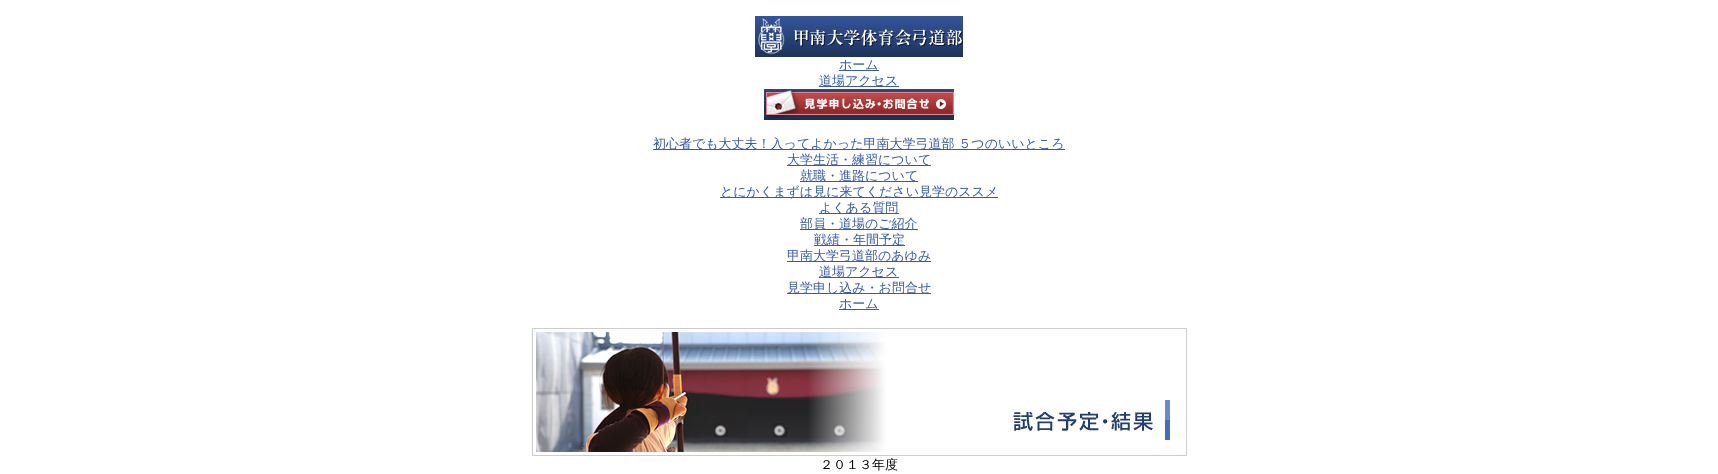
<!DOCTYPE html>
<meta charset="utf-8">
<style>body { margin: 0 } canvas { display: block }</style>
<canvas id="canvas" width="1718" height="474"></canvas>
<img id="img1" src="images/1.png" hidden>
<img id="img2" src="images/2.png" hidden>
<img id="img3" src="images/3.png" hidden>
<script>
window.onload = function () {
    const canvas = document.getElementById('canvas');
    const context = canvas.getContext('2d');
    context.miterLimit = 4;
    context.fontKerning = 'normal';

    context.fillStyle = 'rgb(255, 255, 255)';
    context.fillRect(0, 0, 1718, 474);
    context.drawImage(document.getElementById('img1'), 755, 16, 208, 41);
    context.fillStyle = 'rgb(55, 92, 170)';
    context.fillRect(839, 70, 40, 1);
    context.fillRect(819, 86, 80, 1);
    context.drawImage(document.getElementById('img2'), 764, 89, 190, 31);
    context.fillRect(653, 149, 412, 1);
    context.fillRect(787, 165, 144, 1);
    context.fillRect(800, 181, 118, 1);
    context.fillRect(720, 197, 278, 1);
    context.fillRect(819, 213, 80, 1);
    context.fillRect(800, 229, 118, 1);
    context.fillRect(814, 245, 91, 1);
    context.fillRect(787, 261, 144, 1);
    context.fillRect(819, 277, 80, 1);
    context.fillRect(787, 293, 144, 1);
    context.fillRect(839, 309, 40, 1);
    context.drawImage(document.getElementById('img3'), 532, 328, 655, 128);
    context.font = '500 13px WenQuanYi Zen Hei';
    context.fillText('ホーム', 839, 69);
    context.fillText('道場アクセス', 819, 85);
    context.fillText('初心者でも大丈夫！入ってよかった甲南大学弓道部 ５つのいいところ', 653, 148);
    context.fillText('大学生活・練習について', 787, 164);
    context.fillText('就職・進路について', 800, 180);
    context.fillText('とにかくまずは見に来てください見学のススメ', 720, 196);
    context.fillText('よくある質問', 819, 212);
    context.fillText('部員・道場のご紹介', 800, 228);
    context.fillText('戦績・年間予定', 814, 244);
    context.fillText('甲南大学弓道部のあゆみ', 787, 260);
    context.fillText('道場アクセス', 819, 276);
    context.fillText('見学申し込み・お問合せ', 787, 292);
    context.fillText('ホーム', 839, 308);
    context.fillStyle = 'rgb(0, 0, 0)';
    context.fillText('２０１３年度', 820, 469);
};
</script>
